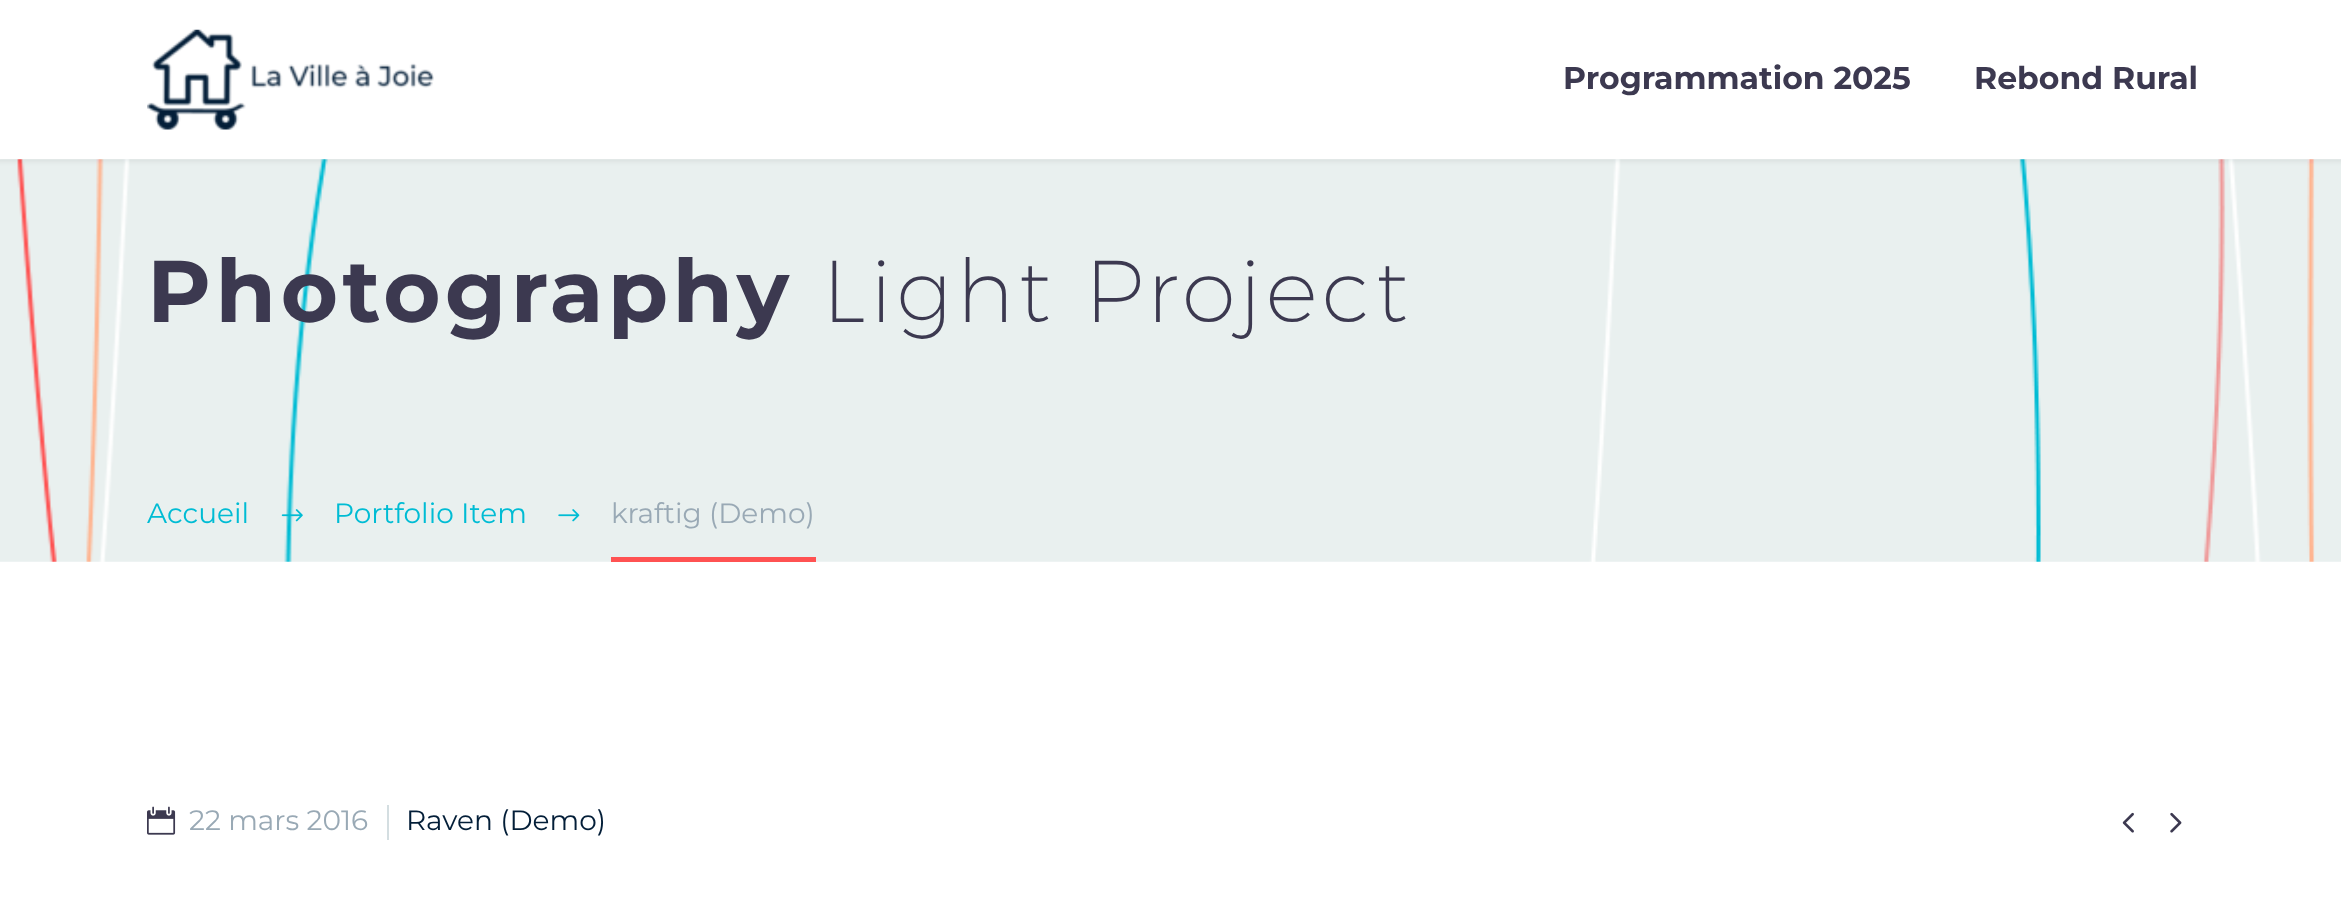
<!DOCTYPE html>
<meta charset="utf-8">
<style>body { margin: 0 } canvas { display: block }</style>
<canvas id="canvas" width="2341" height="920"></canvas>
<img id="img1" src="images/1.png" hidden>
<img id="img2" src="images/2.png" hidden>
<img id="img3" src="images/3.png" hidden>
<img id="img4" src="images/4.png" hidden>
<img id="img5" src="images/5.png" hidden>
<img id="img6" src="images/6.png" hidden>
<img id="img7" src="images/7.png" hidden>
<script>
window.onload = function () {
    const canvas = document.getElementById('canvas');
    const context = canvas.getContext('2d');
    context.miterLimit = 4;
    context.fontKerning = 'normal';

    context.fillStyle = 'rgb(255, 255, 255)';
    context.fillRect(0, 0, 2341, 920);
    context.save();
    context.beginPath();
    context.rect(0, 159, 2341, 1);
    context.clip();
    context.fillStyle = 'rgba(56, 69, 84, 0.2)';
    context.filter = 'blur(2px)';
    context.beginPath();
    context.rect(0, 0, 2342, 159);
    context.fill();
    context.filter = 'none';
    context.restore();
    context.drawImage(document.getElementById('img1'), 147, 29, 287, 101);
    context.drawImage(document.getElementById('img2'), 0, 159, 2341, 403);
    context.drawImage(document.getElementById('img3'), 281, 509, 22, 13);
    context.drawImage(document.getElementById('img4'), 558, 509, 22, 13);
    context.fillStyle = 'rgb(255, 82, 82)';
    context.fillRect(611, 557, 205, 5);
    context.drawImage(document.getElementById('img5'), 147, 806, 29, 29);
    context.fillStyle = 'rgb(212, 222, 225)';
    context.fillRect(387, 805, 2, 35);
    context.drawImage(document.getElementById('img6'), 2122, 812, 12, 21);
    context.drawImage(document.getElementById('img7'), 2170, 812, 12, 21);
    context.font = 'bold 31.5px Montserrat';
    context.fillStyle = 'rgb(60, 57, 80)';
    context.fillText('Programmation 2025', 1563, 89);
    context.fillText('Rebond Rural', 1974, 89);
    context.letterSpacing = '4.4px';
    context.font = 'bold 87.5px Montserrat';
    context.fillText('Photography', 147, 322);
    context.font = '200 87.5px Montserrat';
    context.fillText('Light Project', 822, 322);
    context.letterSpacing = '0px';
    context.font = '28px Montserrat';
    context.fillStyle = 'rgb(0, 188, 212)';
    context.fillText('Accueil', 147, 523);
    context.fillText('Portfolio Item', 334, 523);
    context.fillStyle = 'rgb(153, 169, 181)';
    context.fillText('kraftig (Demo)', 611, 523);
    context.fillText('22 mars 2016', 189, 830);
    context.fillStyle = 'rgb(3, 30, 56)';
    context.fillText('Raven (Demo)', 406, 830);
};
</script>
